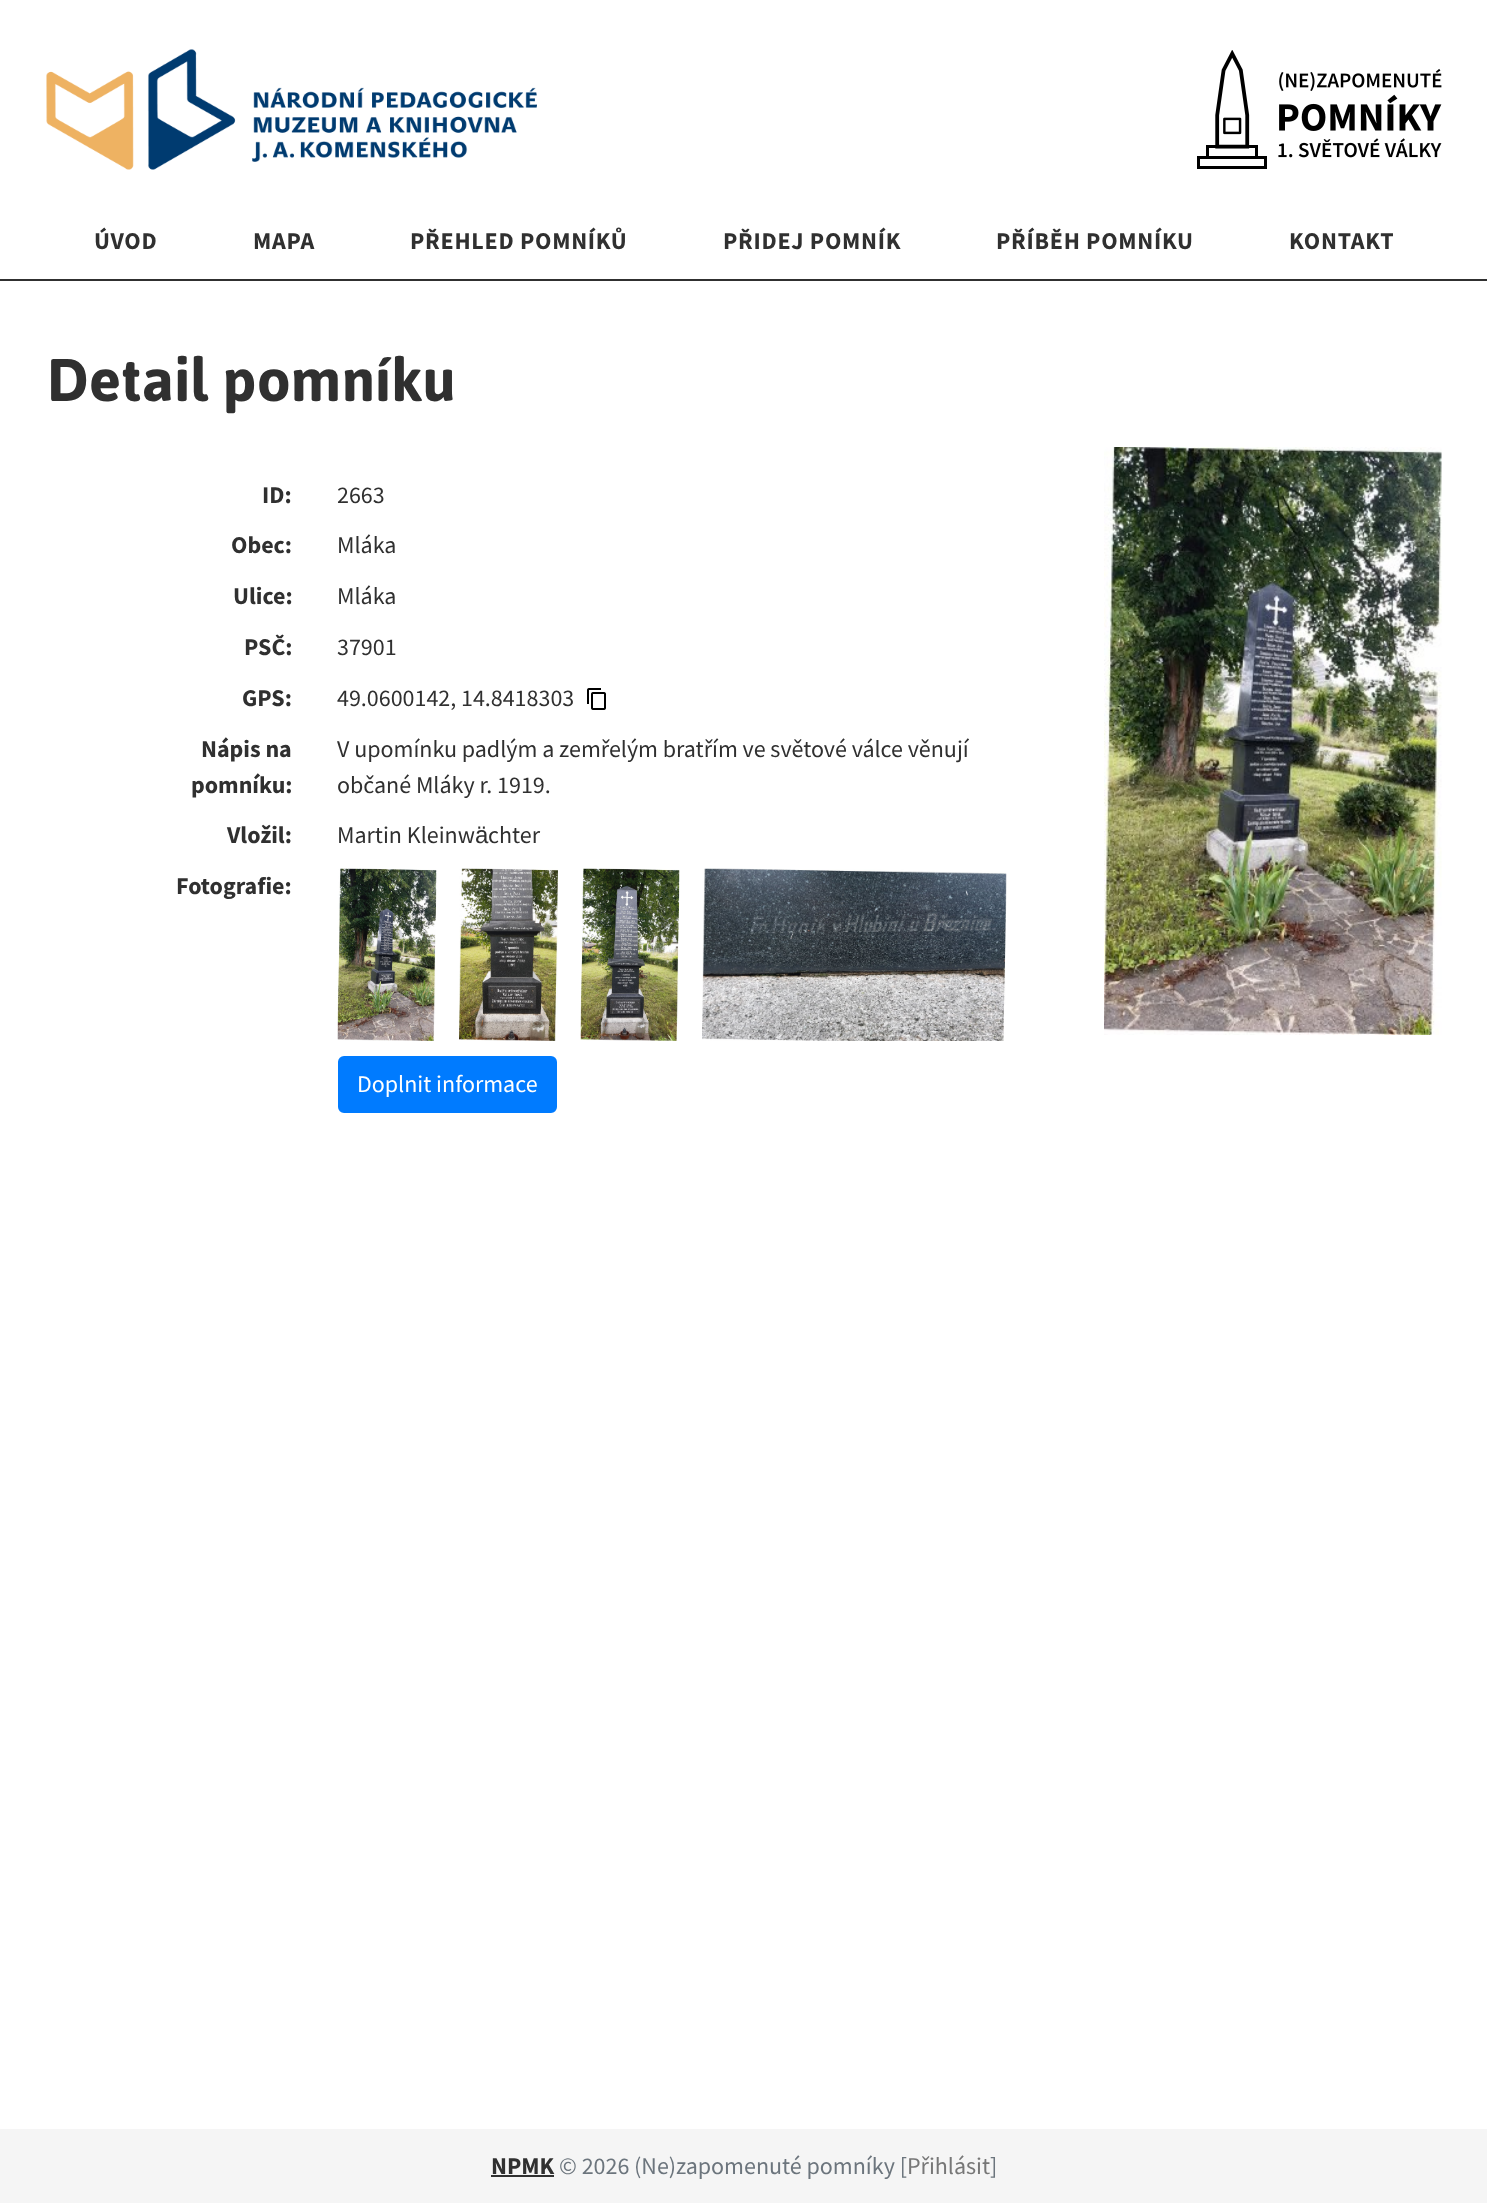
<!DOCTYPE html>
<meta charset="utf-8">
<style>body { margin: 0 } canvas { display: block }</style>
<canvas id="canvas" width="1487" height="2203"></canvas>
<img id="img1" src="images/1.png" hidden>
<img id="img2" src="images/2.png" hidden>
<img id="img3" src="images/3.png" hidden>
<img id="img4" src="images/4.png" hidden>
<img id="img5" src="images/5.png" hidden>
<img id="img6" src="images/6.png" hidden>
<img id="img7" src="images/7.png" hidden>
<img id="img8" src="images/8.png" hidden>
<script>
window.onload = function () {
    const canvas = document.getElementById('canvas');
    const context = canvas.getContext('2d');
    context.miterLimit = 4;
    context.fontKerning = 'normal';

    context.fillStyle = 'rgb(255, 255, 255)';
    context.fillRect(0, 0, 1487, 2203);
    context.drawImage(document.getElementById('img1'), 46, 49, 491, 121);
    context.drawImage(document.getElementById('img2'), 1197, 50, 245, 119);
    context.fillStyle = 'rgb(48, 48, 48)';
    context.fillRect(0, 279, 1487, 2);
    context.drawImage(document.getElementById('img3'), 587, 688, 19, 22);
    context.drawImage(document.getElementById('img4'), 337, 868, 100, 173);
    context.drawImage(document.getElementById('img5'), 459, 868, 99, 173);
    context.drawImage(document.getElementById('img6'), 580, 868, 100, 173);
    context.drawImage(document.getElementById('img7'), 702, 868, 305, 173);
    context.fillStyle = 'rgb(0, 123, 255)';
    context.beginPath();
    context.roundRect(339, 1057, 217, 55, 5);
    context.fill();
    context.strokeStyle = 'rgb(0, 123, 255)';
    context.lineWidth = 2;
    context.stroke();
    context.drawImage(document.getElementById('img8'), 1104, 447, 338, 588);
    context.fillStyle = 'rgb(245, 245, 245)';
    context.fillRect(0, 2129, 1487, 74);
    context.fillStyle = 'rgb(48, 48, 48)';
    context.fillRect(491, 2175, 63, 2);
    context.letterSpacing = '0.75px';
    context.font = 'bold 24px Source Sans Pro';
    context.fillText('ÚVOD', 94, 249);
    context.fillText('MAPA', 253, 249);
    context.fillText('PŘEHLED POMNÍKŮ', 410, 249);
    context.fillText('PŘIDEJ POMNÍK', 723, 249);
    context.fillText('PŘÍBĚH POMNÍKU', 996, 249);
    context.fillText('KONTAKT', 1289, 249);
    context.letterSpacing = '0px';
    context.font = 'bold 60px Asap';
    context.fillText('Detail pomníku', 47, 401);
    context.font = 'bold 24px Source Sans Pro';
    context.fillText('ID:', 262, 503);
    context.font = '24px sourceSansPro';
    context.fillText('2663', 337, 503);
    context.font = 'bold 24px Source Sans Pro';
    context.fillText('Obec:', 231, 553);
    context.font = '24px sourceSansPro';
    context.fillText('Mláka', 337, 553);
    context.font = 'bold 24px Source Sans Pro';
    context.fillText('Ulice:', 233, 604);
    context.font = '24px sourceSansPro';
    context.fillText('Mláka', 337, 604);
    context.font = 'bold 24px Source Sans Pro';
    context.fillText('PSČ:', 244, 655);
    context.font = '24px sourceSansPro';
    context.fillText('37901', 337, 655);
    context.font = 'bold 24px Source Sans Pro';
    context.fillText('GPS:', 242, 706);
    context.font = '24px sourceSansPro';
    context.fillText('49.0600142, 14.8418303', 337, 706);
    context.font = 'bold 24px Source Sans Pro';
    context.fillText('Nápis na', 201, 757);
    context.fillText('pomníku:', 191, 793);
    context.font = '24px sourceSansPro';
    context.fillText('V upomínku padlým a zemřelým bratřím ve světové válce věnují', 337, 757);
    context.fillText('občané Mláky r. 1919.', 337, 793);
    context.font = 'bold 24px Source Sans Pro';
    context.fillText('Vložil:', 227, 843);
    context.font = '24px sourceSansPro';
    context.fillText('Martin Kleinw', 337, 843);
    context.font = '24px Liberation Sans';
    context.fillText('ä', 475, 843);
    context.font = '24px sourceSansPro';
    context.fillText('chter', 488, 843);
    context.font = 'bold 24px Source Sans Pro';
    context.fillText('Fotografie:', 176, 894);
    context.font = '24px sourceSansPro';
    context.fillStyle = 'rgb(255, 255, 255)';
    context.fillText('Doplnit informace', 357, 1092);
    context.font = 'bold 24px Source Sans Pro';
    context.fillStyle = 'rgb(48, 48, 48)';
    context.fillText('NPMK', 491, 2174);
    context.font = '24px sourceSansPro';
    context.fillStyle = 'rgb(108, 117, 125)';
    context.fillText('© 2026 (Ne)zapomenuté pomníky [', 559, 2174);
    context.fillStyle = 'rgb(119, 119, 119)';
    context.fillText('Přihlásit', 907, 2174);
    context.fillStyle = 'rgb(108, 117, 125)';
    context.fillText(']', 990, 2174);
};
</script>
